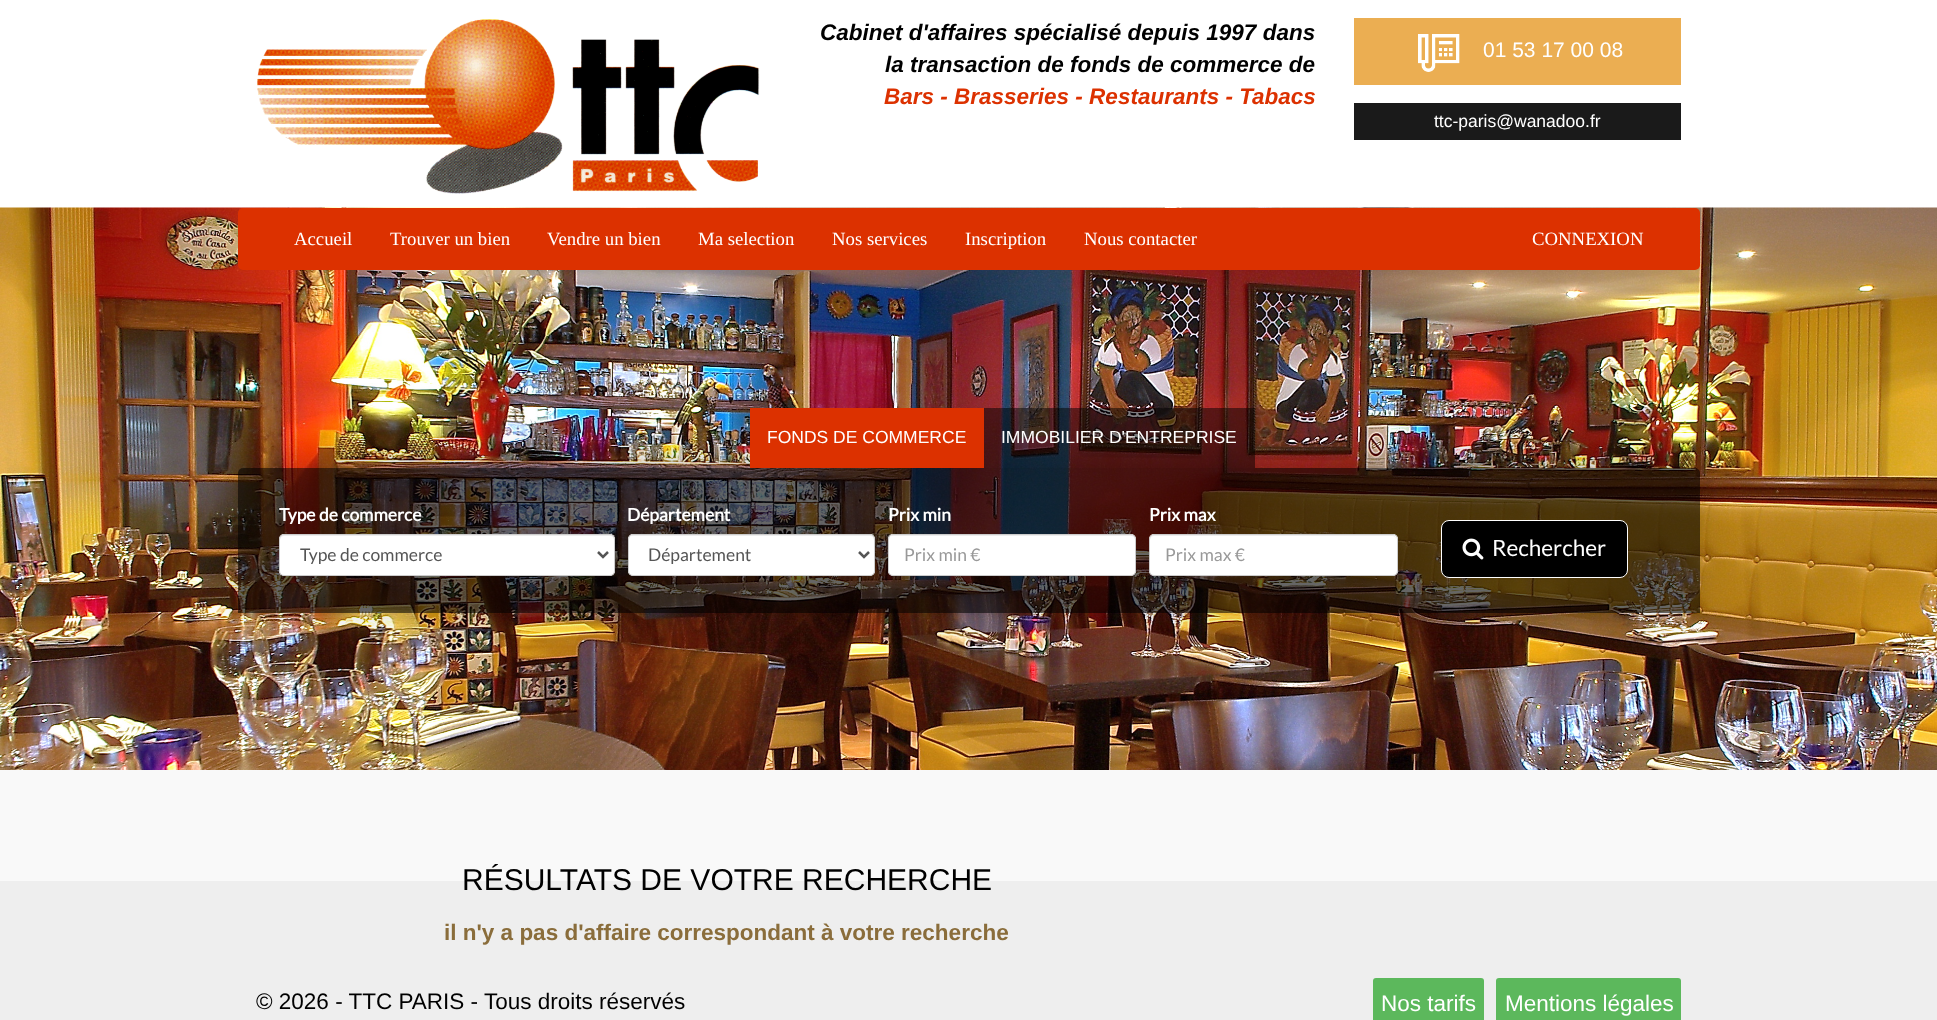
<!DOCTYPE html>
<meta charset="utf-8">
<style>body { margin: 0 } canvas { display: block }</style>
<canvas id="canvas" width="1937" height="1020"></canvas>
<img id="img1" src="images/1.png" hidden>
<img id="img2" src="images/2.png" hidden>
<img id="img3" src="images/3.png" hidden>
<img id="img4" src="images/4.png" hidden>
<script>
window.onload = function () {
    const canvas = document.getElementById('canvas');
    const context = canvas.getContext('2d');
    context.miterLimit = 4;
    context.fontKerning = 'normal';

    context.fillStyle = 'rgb(249, 249, 249)';
    context.fillRect(0, 0, 1937, 1020);
    context.fillStyle = 'rgb(255, 255, 255)';
    context.fillRect(0, 0, 1937, 208);
    context.drawImage(document.getElementById('img1'), 257, 19, 503, 175);
    context.fillStyle = 'rgb(235, 174, 82)';
    context.fillRect(1354, 18, 327, 67);
    context.drawImage(document.getElementById('img2'), 1418, 34, 42, 38);
    context.fillStyle = 'rgb(26, 26, 26)';
    context.fillRect(1354, 103, 327, 37);
    context.drawImage(document.getElementById('img3'), 0, 207, 1937, 563);
    context.fillStyle = 'rgb(220, 49, 0)';
    context.beginPath();
    context.roundRect(238, 208, 1462, 62, 5);
    context.fill();
    context.save();
    context.beginPath();
    context.moveTo(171, 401);
    context.lineTo(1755, 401);
    context.lineTo(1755, 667);
    context.lineTo(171, 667);
    context.closePath();
    context.moveTo(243, 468);
    context.lineTo(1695, 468);
    context.bezierCurveTo(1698, 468, 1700, 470, 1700, 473);
    context.lineTo(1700, 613);
    context.lineTo(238, 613);
    context.lineTo(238, 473);
    context.bezierCurveTo(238, 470, 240, 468, 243, 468);
    context.closePath();
    context.clip('evenodd');
    context.fillStyle = 'rgba(0, 0, 0, 0.3)';
    context.filter = 'blur(22px)';
    context.beginPath();
    context.rect(238, 468, 1450, 132);
    context.fill();
    context.filter = 'none';
    context.restore();
    context.fillRect(750, 408, 234, 60);
    context.fillStyle = 'rgba(0, 0, 0, 0.5)';
    context.fillRect(984, 408, 271, 60);
    context.fillStyle = 'rgba(0, 0, 0, 0.6)';
    context.beginPath();
    context.roundRect(238, 468, 1462, 145, [5, 5, 0, 0]);
    context.fill();
    context.fillStyle = 'rgb(255, 255, 255)';
    context.beginPath();
    context.roundRect(279, 534, 336, 42, 5);
    context.fill();
    context.fillStyle = 'rgb(236, 236, 236)';
    context.beginPath();
    context.moveTo(284, 536);
    context.lineTo(610, 536);
    context.bezierCurveTo(612, 536, 614, 538, 614, 540);
    context.bezierCurveTo(614, 537, 613, 535, 610, 535);
    context.lineTo(284, 535);
    context.bezierCurveTo(281, 535, 280, 537, 280, 540);
    context.bezierCurveTo(280, 538, 282, 536, 284, 536);
    context.closePath();
    context.fill();
    context.beginPath();
    context.roundRect(279.5, 534.5, 335, 41, 4.5);
    context.strokeStyle = 'rgb(204, 204, 204)';
    context.stroke();
    context.beginPath();
    context.moveTo(598, 552);
    context.lineTo(603, 557);
    context.lineTo(608, 552);
    context.strokeStyle = 'rgb(85, 85, 85)';
    context.lineWidth = 2.5;
    context.stroke();
    context.fillStyle = 'rgb(255, 255, 255)';
    context.beginPath();
    context.roundRect(628, 534, 247, 42, 5);
    context.fill();
    context.fillStyle = 'rgb(236, 236, 236)';
    context.beginPath();
    context.moveTo(632, 536);
    context.lineTo(870, 536);
    context.bezierCurveTo(872, 536, 874, 538, 874, 540);
    context.lineTo(874, 539);
    context.bezierCurveTo(874, 537, 872, 535, 870, 535);
    context.lineTo(633, 535);
    context.bezierCurveTo(631, 535, 629, 537, 629, 539);
    context.lineTo(629, 540);
    context.bezierCurveTo(629, 538, 630, 536, 632, 536);
    context.closePath();
    context.fill();
    context.beginPath();
    context.roundRect(628.5, 534.5, 246, 41, 4.5);
    context.strokeStyle = 'rgb(204, 204, 204)';
    context.lineWidth = 1;
    context.stroke();
    context.beginPath();
    context.moveTo(859, 552);
    context.lineTo(864, 557);
    context.lineTo(869, 552);
    context.strokeStyle = 'rgb(85, 85, 85)';
    context.lineWidth = 2.5;
    context.stroke();
    context.fillStyle = 'rgb(255, 255, 255)';
    context.beginPath();
    context.roundRect(888, 534, 248, 42, 5);
    context.fill();
    context.fillStyle = 'rgb(236, 236, 236)';
    context.beginPath();
    context.moveTo(892, 536);
    context.lineTo(1131, 536);
    context.bezierCurveTo(1133, 536, 1135, 538, 1135, 540);
    context.lineTo(1135, 539);
    context.bezierCurveTo(1135, 537, 1133, 535, 1131, 535);
    context.lineTo(893, 535);
    context.bezierCurveTo(891, 535, 889, 537, 889, 539);
    context.lineTo(889, 540);
    context.bezierCurveTo(889, 538, 890, 536, 892, 536);
    context.closePath();
    context.fill();
    context.beginPath();
    context.roundRect(888.5, 534.5, 247, 41, 4.5);
    context.strokeStyle = 'rgb(204, 204, 204)';
    context.lineWidth = 1;
    context.stroke();
    context.fillStyle = 'rgb(255, 255, 255)';
    context.beginPath();
    context.roundRect(1149, 534, 249, 42, 5);
    context.fill();
    context.fillStyle = 'rgb(236, 236, 236)';
    context.beginPath();
    context.moveTo(1154, 536);
    context.lineTo(1392, 536);
    context.bezierCurveTo(1395, 536, 1396, 538, 1396, 540);
    context.lineTo(1396, 539);
    context.bezierCurveTo(1396, 537, 1394, 535, 1392, 535);
    context.lineTo(1154, 535);
    context.bezierCurveTo(1152, 535, 1150, 537, 1150, 539);
    context.lineTo(1150, 540);
    context.bezierCurveTo(1150, 538, 1152, 536, 1154, 536);
    context.closePath();
    context.fill();
    context.beginPath();
    context.roundRect(1149.5, 534.5, 248, 41, 4.5);
    context.stroke();
    context.fillStyle = 'rgb(0, 0, 0)';
    context.beginPath();
    context.roundRect(1441.5, 520.5, 186, 57, 7.5);
    context.fill();
    context.strokeStyle = 'rgb(255, 255, 255)';
    context.stroke();
    context.drawImage(document.getElementById('img4'), 1462, 538, 22, 22);
    context.fillStyle = 'rgb(238, 238, 238)';
    context.fillRect(0, 881, 1937, 139);
    context.fillStyle = 'rgb(92, 184, 92)';
    context.beginPath();
    context.roundRect(1373, 978, 111, 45, 3);
    context.fill();
    context.beginPath();
    context.roundRect(1496, 978, 185, 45, 3);
    context.fill();
    context.font = 'italic bold 22.5px Liberation Sans';
    context.fillStyle = 'rgb(0, 0, 0)';
    context.fillText('Cabinet d\'affaires spécialisé depuis 1997 dans', 820, 40);
    context.fillText('la transaction de fonds de commerce de', 885, 72);
    context.fillStyle = 'rgb(220, 49, 0)';
    context.fillText('Bars - Brasseries - Restaurants - Tabacs', 884, 104);
    context.font = '21px Liberation Sans';
    context.fillStyle = 'rgb(255, 255, 255)';
    context.fillText('01 53 17 00 08', 1483, 57);
    context.font = '17.5px Liberation Sans';
    context.fillText('ttc-paris@wanadoo.fr', 1434, 127);
    context.font = '18.75px Liberation Serif';
    context.fillText('Accueil', 294, 245);
    context.fillText('Trouver un bien', 390, 245);
    context.fillText('Vendre un bien', 547, 245);
    context.fillText('Ma selection', 698, 245);
    context.fillText('Nos services', 832, 245);
    context.fillText('Inscription', 965, 245);
    context.fillText('Nous contacter', 1084, 245);
    context.fillText('CONNEXION', 1532, 245);
    context.font = '17.5px Liberation Sans';
    context.fillText('FONDS DE COMMERCE', 767, 443);
    context.fillText('IMMOBILIER D\'ENTREPRISE', 1001, 443);
    context.font = 'bold 17.5px Lato';
    context.fillText('Type de commerce', 279, 521);
    context.font = '17.5px Lato';
    context.fillStyle = 'rgb(85, 85, 85)';
    context.fillText('Type de commerce', 300, 561);
    context.font = 'bold 17.5px Lato';
    context.fillStyle = 'rgb(255, 255, 255)';
    context.fillText('Département', 627, 521);
    context.font = '17.5px Lato';
    context.fillStyle = 'rgb(85, 85, 85)';
    context.fillText('Département', 648, 561);
    context.font = 'bold 17.5px Lato';
    context.fillStyle = 'rgb(255, 255, 255)';
    context.fillText('Prix min', 888, 521);
    context.font = '17.5px Lato';
    context.fillStyle = 'rgb(153, 153, 153)';
    context.fillText('Prix min €', 904, 561);
    context.font = 'bold 17.5px Lato';
    context.fillStyle = 'rgb(255, 255, 255)';
    context.fillText('Prix max', 1149, 521);
    context.font = '17.5px Lato';
    context.fillStyle = 'rgb(153, 153, 153)';
    context.fillText('Prix max €', 1165, 561);
    context.font = '22.5px Lato';
    context.fillStyle = 'rgb(255, 255, 255)';
    context.fillText('Rechercher', 1492, 556);
    context.font = '30px Liberation Sans';
    context.fillStyle = 'rgb(0, 0, 0)';
    context.fillText('RÉSULTATS DE VOTRE RECHERCHE', 462, 890);
    context.font = 'bold 22.5px Liberation Sans';
    context.fillStyle = 'rgb(138, 109, 59)';
    context.fillText('il n\'y a pas d\'affaire correspondant à votre recherche', 444, 940);
    context.font = '22.5px Liberation Sans';
    context.fillStyle = 'rgb(0, 0, 0)';
    context.fillText('© 2026 - TTC PARIS - Tous droits réservés', 256, 1009);
    context.fillStyle = 'rgb(255, 255, 255)';
    context.fillText('Nos tarifs', 1381, 1011);
    context.fillText('Mentions légales', 1505, 1011);
};
</script>
